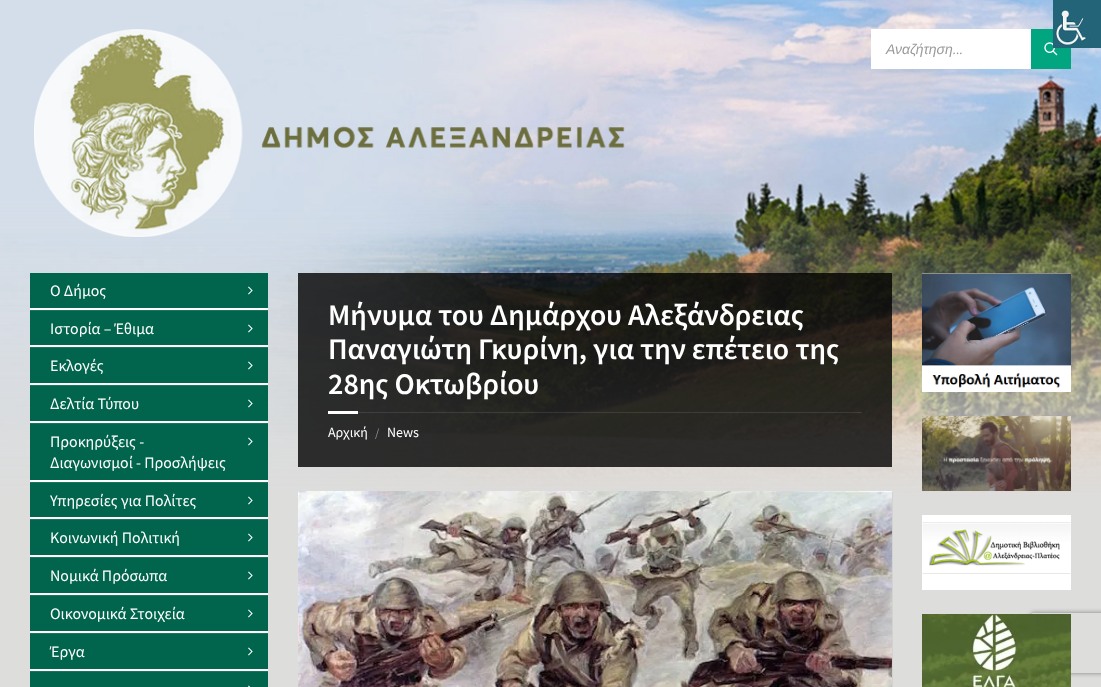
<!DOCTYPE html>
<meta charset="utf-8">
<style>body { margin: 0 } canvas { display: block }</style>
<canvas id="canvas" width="1101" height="687"></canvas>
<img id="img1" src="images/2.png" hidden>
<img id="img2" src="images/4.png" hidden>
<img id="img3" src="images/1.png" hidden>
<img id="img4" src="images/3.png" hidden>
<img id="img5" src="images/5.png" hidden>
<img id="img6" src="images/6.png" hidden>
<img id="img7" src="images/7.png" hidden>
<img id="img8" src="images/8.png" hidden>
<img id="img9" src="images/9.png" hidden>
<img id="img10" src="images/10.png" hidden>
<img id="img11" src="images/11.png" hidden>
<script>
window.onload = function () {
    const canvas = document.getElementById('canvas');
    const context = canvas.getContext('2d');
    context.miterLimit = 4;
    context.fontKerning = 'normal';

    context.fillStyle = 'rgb(221, 221, 220)';
    context.fillRect(0, 0, 1101, 687);
    context.drawImage(document.getElementById('img1'), 0, 0, 1101, 499);
    context.fillStyle = 'rgb(1, 166, 128)';
    context.fillRect(1031, 29, 40, 40);
    context.drawImage(document.getElementById('img2'), 1044, 42, 14, 14);
    context.drawImage(document.getElementById('img3'), 1053, 0, 48, 48);
    context.drawImage(document.getElementById('img4'), 34, 29, 591, 208);
    context.fillStyle = 'rgb(255, 255, 255)';
    context.fillRect(871, 29, 160, 40);
    context.fillRect(30, 308, 238, 363);
    context.fillStyle = 'rgb(1, 101, 77)';
    context.fillRect(30, 273, 238, 35);
    context.drawImage(document.getElementById('img5'), 248, 286, 5, 9);
    context.fillRect(30, 311, 238, 34);
    context.fillStyle = 'rgb(26, 116, 95)';
    context.fillRect(30, 310, 238, 1);
    context.drawImage(document.getElementById('img5'), 248, 324, 5, 9);
    context.fillStyle = 'rgb(1, 101, 77)';
    context.fillRect(30, 348, 238, 35);
    context.fillStyle = 'rgb(26, 116, 95)';
    context.fillRect(30, 347, 238, 1);
    context.drawImage(document.getElementById('img5'), 248, 361, 5, 9);
    context.fillStyle = 'rgb(1, 101, 77)';
    context.fillRect(30, 386, 238, 35);
    context.fillStyle = 'rgb(26, 116, 95)';
    context.fillRect(30, 385, 238, 1);
    context.drawImage(document.getElementById('img5'), 248, 399, 5, 9);
    context.fillStyle = 'rgb(1, 101, 77)';
    context.fillRect(30, 424, 238, 56);
    context.fillStyle = 'rgb(26, 116, 95)';
    context.fillRect(30, 423, 238, 1);
    context.drawImage(document.getElementById('img5'), 248, 437, 5, 9);
    context.fillStyle = 'rgb(1, 101, 77)';
    context.fillRect(30, 483, 238, 34);
    context.fillStyle = 'rgb(26, 116, 95)';
    context.fillRect(30, 482, 238, 1);
    context.drawImage(document.getElementById('img5'), 248, 496, 5, 9);
    context.fillStyle = 'rgb(1, 101, 77)';
    context.fillRect(30, 520, 238, 35);
    context.fillStyle = 'rgb(26, 116, 95)';
    context.fillRect(30, 519, 238, 1);
    context.drawImage(document.getElementById('img5'), 248, 533, 5, 9);
    context.fillStyle = 'rgb(1, 101, 77)';
    context.fillRect(30, 558, 238, 35);
    context.fillStyle = 'rgb(26, 116, 95)';
    context.fillRect(30, 557, 238, 1);
    context.drawImage(document.getElementById('img5'), 248, 571, 5, 9);
    context.fillStyle = 'rgb(1, 101, 77)';
    context.fillRect(30, 596, 238, 35);
    context.fillStyle = 'rgb(26, 116, 95)';
    context.fillRect(30, 595, 238, 1);
    context.drawImage(document.getElementById('img5'), 248, 609, 5, 9);
    context.fillStyle = 'rgb(1, 101, 77)';
    context.fillRect(30, 634, 238, 35);
    context.fillStyle = 'rgb(26, 116, 95)';
    context.fillRect(30, 633, 238, 1);
    context.drawImage(document.getElementById('img5'), 248, 647, 5, 9);
    context.fillStyle = 'rgb(1, 101, 77)';
    context.fillRect(30, 672, 238, 15);
    context.fillStyle = 'rgb(26, 116, 95)';
    context.fillRect(30, 671, 238, 1);
    context.drawImage(document.getElementById('img6'), 248, 685, 3, 2);
    context.fillStyle = 'rgba(0, 0, 0, 0.8)';
    context.fillRect(298, 273, 594, 194);
    context.fillStyle = 'rgba(255, 255, 255, 0.1)';
    context.fillRect(358, 412, 504, 1);
    context.fillStyle = 'rgb(255, 255, 255)';
    context.fillRect(328, 411, 30, 3);
    context.fillStyle = 'rgb(210, 210, 209)';
    context.beginPath();
    context.moveTo(299, 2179);
    context.lineTo(299, 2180);
    context.lineTo(893, 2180);
    context.lineTo(893, 492);
    context.lineTo(892, 492);
    context.lineTo(892, 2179);
    context.closePath();
    context.fill();
    context.drawImage(document.getElementById('img7'), 298, 491, 594, 196);
    context.fillStyle = 'rgb(255, 255, 255)';
    context.fillRect(922, 388, 149, 4);
    context.drawImage(document.getElementById('img8'), 922, 273, 149, 115);
    context.drawImage(document.getElementById('img9'), 922, 416, 149, 75);
    context.fillRect(922, 515, 149, 75);
    context.drawImage(document.getElementById('img10'), 922, 522, 149, 52);
    context.save();
    context.beginPath();
    context.moveTo(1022, 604);
    context.lineTo(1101, 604);
    context.lineTo(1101, 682);
    context.lineTo(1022, 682);
    context.closePath();
    context.moveTo(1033, 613);
    context.lineTo(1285, 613);
    context.bezierCurveTo(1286, 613, 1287, 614, 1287, 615);
    context.lineTo(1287, 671);
    context.bezierCurveTo(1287, 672, 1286, 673, 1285, 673);
    context.lineTo(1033, 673);
    context.bezierCurveTo(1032, 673, 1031, 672, 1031, 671);
    context.lineTo(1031, 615);
    context.bezierCurveTo(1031, 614, 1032, 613, 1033, 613);
    context.closePath();
    context.clip('evenodd');
    context.fillStyle = 'rgb(128, 128, 128)';
    context.filter = 'blur(2.5px)';
    context.beginPath();
    context.roundRect(1031, 613, 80, 60, 2);
    context.fill();
    context.filter = 'none';
    context.restore();
    context.drawImage(document.getElementById('img11'), 922, 614, 149, 73);
    context.font = 'italic 14px Liberation Sans';
    context.fillStyle = 'rgb(154, 154, 154)';
    context.fillText('Αναζήτηση', 886, 54);
    context.font = 'italic 14px Source Sans Pro';
    context.fillText('...', 953, 54);
    context.font = '16px Source Sans Pro';
    context.fillStyle = 'rgb(255, 255, 255)';
    context.fillText('Ο Δήμος', 50, 296);
    context.fillText('Ιστορία – Έθιμα', 50, 334);
    context.fillText('Eκλογές', 50, 371);
    context.fillText('Δελτία Τύπου', 50, 409);
    context.fillText('Προκηρύξεις -', 50, 447);
    context.fillText('Διαγωνισμοί - Προσλήψεις', 50, 468);
    context.fillText('Υπηρεσίες για Πολίτες', 50, 506);
    context.fillText('Κοινωνική Πολιτική', 50, 543);
    context.fillText('Νομικά Πρόσωπα', 50, 581);
    context.fillText('Οικονομικά Στοιχεία', 50, 619);
    context.fillText('Έργα', 50, 657);
    context.font = '600 30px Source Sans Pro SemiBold';
    context.fillText('Μήνυμα του Δημάρχου Αλεξάνδρειας', 328, 325);
    context.fillText('Παναγιώτη Γκυρίνη, για την επέτειο της', 328, 359);
    context.fillText('28ης Οκτωβρίου', 328, 394);
    context.font = '14px Source Sans Pro';
    context.fillText('Αρχική', 328, 437);
    context.font = '12px Source Sans Pro';
    context.fillStyle = 'rgb(138, 148, 155)';
    context.fillText('/', 375, 437);
    context.font = '14px Source Sans Pro';
    context.fillStyle = 'rgb(255, 255, 255)';
    context.fillText('News', 387, 437);
};
</script>
